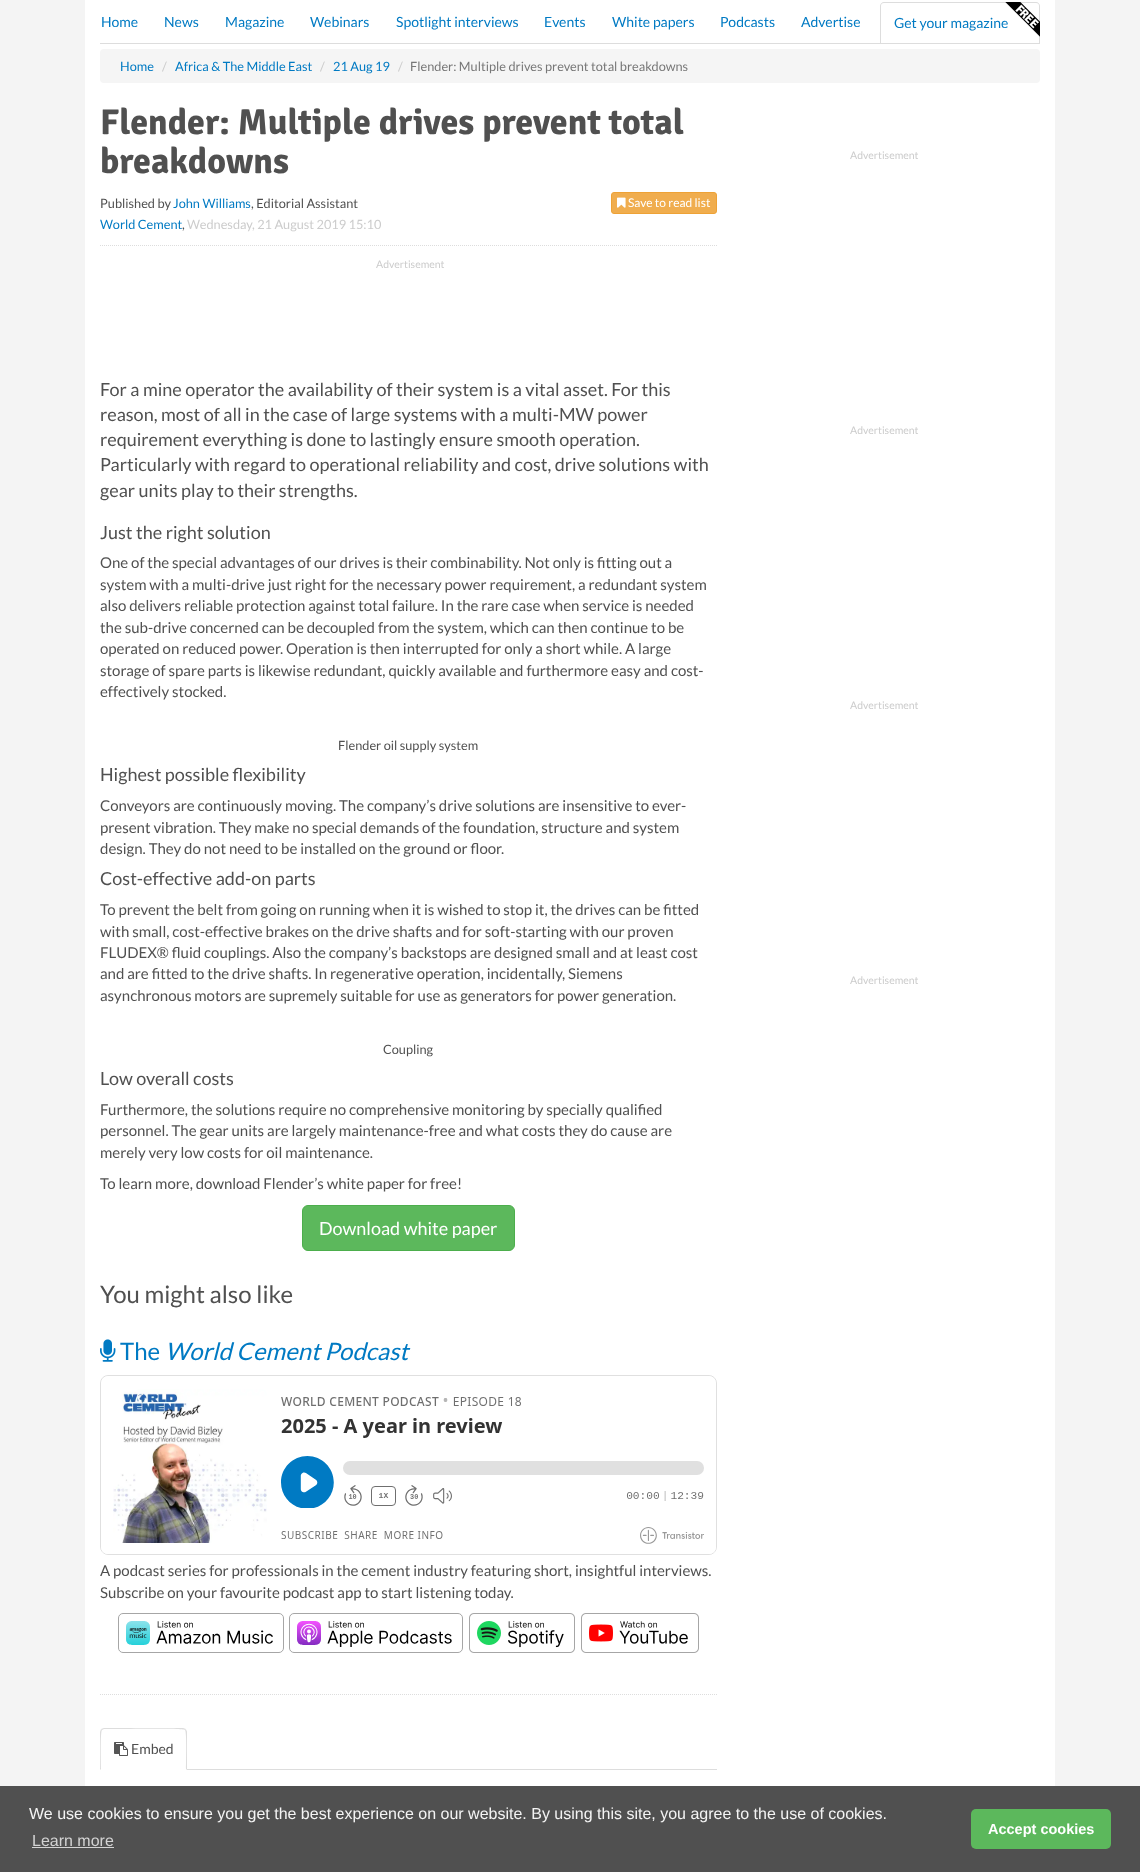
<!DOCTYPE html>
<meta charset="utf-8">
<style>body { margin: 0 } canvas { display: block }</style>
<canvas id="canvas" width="1140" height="1872"></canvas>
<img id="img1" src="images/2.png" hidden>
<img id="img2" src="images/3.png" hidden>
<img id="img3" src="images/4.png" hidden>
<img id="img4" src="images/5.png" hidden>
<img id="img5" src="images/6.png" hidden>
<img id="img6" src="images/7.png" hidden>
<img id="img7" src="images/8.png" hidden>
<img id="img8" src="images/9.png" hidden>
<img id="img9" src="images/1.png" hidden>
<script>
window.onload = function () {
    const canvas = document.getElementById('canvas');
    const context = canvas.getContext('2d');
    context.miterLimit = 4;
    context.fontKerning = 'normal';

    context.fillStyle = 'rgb(244, 244, 244)';
    context.fillRect(0, 0, 1140, 1872);
    context.fillStyle = 'rgb(255, 255, 255)';
    context.fillRect(85, 0, 970, 2);
    context.fillRect(85, 2, 970, 101);
    context.fillStyle = 'rgb(221, 221, 221)';
    context.fillRect(100, 43, 940, 1);
    context.beginPath();
    context.moveTo(884, 2);
    context.lineTo(1036, 2);
    context.bezierCurveTo(1038, 2, 1040, 4, 1040, 6);
    context.lineTo(1040, 43);
    context.lineTo(880, 43);
    context.lineTo(880, 6);
    context.bezierCurveTo(880, 4, 882, 2, 884, 2);
    context.closePath();
    context.moveTo(884, 3);
    context.lineTo(1036, 3);
    context.bezierCurveTo(1038, 3, 1039, 4, 1039, 6);
    context.lineTo(1039, 43);
    context.lineTo(881, 43);
    context.lineTo(881, 6);
    context.bezierCurveTo(881, 4, 882, 3, 884, 3);
    context.closePath();
    context.fill('evenodd');
    context.fillStyle = 'rgb(245, 245, 245)';
    context.beginPath();
    context.roundRect(100, 49, 940, 34, 4);
    context.fill();
    context.fillStyle = 'rgb(255, 255, 255)';
    context.beginPath();
    context.roundRect(85, 99, 970, 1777, 4);
    context.fill();
    context.fillStyle = 'rgb(240, 173, 78)';
    context.beginPath();
    context.roundRect(611.5, 192.5, 105, 21, 2.5);
    context.fill();
    context.strokeStyle = 'rgb(238, 162, 54)';
    context.stroke();
    context.drawImage(document.getElementById('img1'), 617, 197, 9, 11);
    context.beginPath();
    context.moveTo(100, 245.5);
    context.lineTo(717, 245.5);
    context.strokeStyle = 'rgb(221, 221, 221)';
    context.setLineDash([1, 1]);
    context.stroke();
    context.fillStyle = 'rgb(92, 184, 92)';
    context.beginPath();
    context.roundRect(302.5, 1205.5, 212, 45, 5.5);
    context.fill();
    context.strokeStyle = 'rgb(76, 174, 76)';
    context.setLineDash([]);
    context.stroke();
    context.drawImage(document.getElementById('img2'), 100, 1339, 16, 23);
    context.drawImage(document.getElementById('img3'), 100, 1375, 617, 180);
    context.drawImage(document.getElementById('img4'), 118, 1613, 166, 40);
    context.drawImage(document.getElementById('img5'), 289, 1613, 174, 40);
    context.drawImage(document.getElementById('img6'), 469, 1613, 106, 40);
    context.drawImage(document.getElementById('img7'), 581, 1613, 118, 40);
    context.beginPath();
    context.moveTo(100, 1694.5);
    context.lineTo(717, 1694.5);
    context.strokeStyle = 'rgb(221, 221, 221)';
    context.setLineDash([1, 1]);
    context.stroke();
    context.fillStyle = 'rgb(221, 221, 221)';
    context.fillRect(187, 1769, 530, 1);
    context.beginPath();
    context.moveTo(104, 1728);
    context.lineTo(101, 1729);
    context.lineTo(102, 1730);
    context.lineTo(104, 1729);
    context.lineTo(117, 1729);
    context.bezierCurveTo(124, 1729, 183, 1728, 185, 1730);
    context.lineTo(186, 1729);
    context.lineTo(183, 1728);
    context.closePath();
    context.fill();
    context.beginPath();
    context.moveTo(187, 1770);
    context.lineTo(187, 1732);
    context.bezierCurveTo(187, 1731, 186, 1730, 186, 1729);
    context.lineTo(185, 1730);
    context.bezierCurveTo(187, 1732, 186, 1764, 186, 1769);
    context.closePath();
    context.fill();
    context.beginPath();
    context.moveTo(100, 1770);
    context.lineTo(101, 1769);
    context.bezierCurveTo(101, 1764, 100, 1732, 102, 1730);
    context.lineTo(101, 1729);
    context.lineTo(100, 1732);
    context.closePath();
    context.fill();
    context.drawImage(document.getElementById('img8'), 114, 1742, 14, 14);
    context.fillStyle = 'rgb(80, 80, 80)';
    context.fillRect(0, 1786, 1140, 86);
    context.fillStyle = 'rgb(211, 211, 211)';
    context.fillRect(32, 1847, 82, 1);
    context.fillStyle = 'rgb(92, 184, 92)';
    context.beginPath();
    context.roundRect(971, 1809, 140, 40, 5);
    context.fill();
    context.font = '14px Lato';
    context.fillStyle = 'rgb(0, 122, 195)';
    context.fillText('Home', 101, 27);
    context.fillText('News', 164, 27);
    context.fillText('Magazine', 225, 27);
    context.fillText('Webinars', 310, 27);
    context.fillText('Spotlight interviews', 396, 27);
    context.fillText('Events', 544, 27);
    context.fillText('White papers', 612, 27);
    context.fillText('Podcasts', 720, 27);
    context.fillText('Advertise', 801, 27);
    context.fillText('Get your magazine', 894, 28);
    context.drawImage(document.getElementById('img9'), 1005, 2, 35, 35);
    context.font = '12.75px Lato';
    context.fillText('Home', 120, 71);
    context.fillStyle = 'rgb(204, 204, 204)';
    context.fillText('/', 162, 71);
    context.fillStyle = 'rgb(0, 122, 195)';
    context.fillText('Africa & The Middle East', 175, 71);
    context.fillStyle = 'rgb(204, 204, 204)';
    context.fillText('/', 320, 71);
    context.fillStyle = 'rgb(0, 122, 195)';
    context.fillText('21 Aug 19', 333, 71);
    context.fillStyle = 'rgb(204, 204, 204)';
    context.fillText('/', 398, 71);
    context.fillStyle = 'rgb(119, 119, 119)';
    context.fillText('Flender: Multiple drives prevent total breakdowns', 410, 71);
    context.font = 'bold 36px Signika';
    context.fillStyle = 'rgb(80, 80, 80)';
    context.fillText('Flender: Multiple drives prevent total', 100, 134);
    context.fillText('breakdowns', 100, 173);
    context.font = '12.75px Lato';
    context.fillText('Published by', 100, 208);
    context.fillStyle = 'rgb(0, 122, 195)';
    context.fillText('John Williams', 173, 208);
    context.fillStyle = 'rgb(80, 80, 80)';
    context.fillText(', Editorial Assistant', 251, 208);
    context.font = '12px Lato';
    context.fillStyle = 'rgb(255, 255, 255)';
    context.fillText('Save to read list', 628, 207);
    context.font = '12.75px Lato';
    context.fillStyle = 'rgb(0, 122, 195)';
    context.fillText('World Cement', 100, 229);
    context.fillStyle = 'rgb(80, 80, 80)';
    context.fillText(',', 182, 229);
    context.fillStyle = 'rgb(204, 204, 204)';
    context.fillText('Wednesday, 21 August 2019 15:10', 187, 229);
    context.font = '10.5px Lato';
    context.fillText('Advertisement', 376, 268);
    context.font = '18px Lato';
    context.fillStyle = 'rgb(80, 80, 80)';
    context.fillText('For a mine operator the availability of their system is a vital asset. For this', 100, 396);
    context.fillText('reason, most of all in the case of large systems with a multi-MW power', 100, 421);
    context.fillText('requirement everything is done to lastingly ensure smooth operation.', 100, 446);
    context.fillText('Particularly with regard to operational reliability and cost, drive solutions with', 100, 471);
    context.fillText('gear units play to their strengths.', 100, 497);
    context.fillText('Just the right solution', 100, 539);
    context.font = '15px Lato';
    context.fillText('One of the special advantages of our drives is their combinability. Not only is fitting out a', 100, 568);
    context.fillText('system with a multi-drive just right for the necessary power requirement, a redundant system', 100, 590);
    context.fillText('also delivers reliable protection against total failure. In the rare case when service is needed', 100, 611);
    context.fillText('the sub-drive concerned can be decoupled from the system, which can then continue to be', 100, 633);
    context.fillText('operated on reduced power. Operation is then interrupted for only a short while. A large', 100, 654);
    context.fillText('storage of spare parts is likewise redundant, quickly available and furthermore easy and cost-', 100, 676);
    context.fillText('effectively stocked.', 100, 697);
    context.font = '12.75px Lato';
    context.fillText('Flender oil supply system', 338, 750);
    context.font = '18px Lato';
    context.fillText('Highest possible flexibility', 100, 781);
    context.font = '15px Lato';
    context.fillText('Conveyors are continuously moving. The company’s drive solutions are insensitive to ever-', 100, 811);
    context.fillText('present vibration. They make no special demands of the foundation, structure and system', 100, 833);
    context.fillText('design. They do not need to be installed on the ground or floor.', 100, 854);
    context.font = '18px Lato';
    context.fillText('Cost-effective add-on parts', 100, 885);
    context.font = '15px Lato';
    context.fillText('To prevent the belt from going on running when it is wished to stop it, the drives can be fitted', 100, 915);
    context.fillText('with small, cost-effective brakes on the drive shafts and for soft-starting with our proven', 100, 937);
    context.fillText('FLUDEX® fluid couplings. Also the company’s backstops are designed small and at least cost', 100, 958);
    context.fillText('and are fitted to the drive shafts. In regenerative operation, incidentally, Siemens', 100, 979);
    context.fillText('asynchronous motors are supremely suitable for use as generators for power generation.', 100, 1001);
    context.font = '12.75px Lato';
    context.fillText('Coupling', 383, 1054);
    context.font = '18px Lato';
    context.fillText('Low overall costs', 100, 1085);
    context.font = '15px Lato';
    context.fillText('Furthermore, the solutions require no comprehensive monitoring by specially qualified', 100, 1115);
    context.fillText('personnel. The gear units are largely maintenance-free and what costs they do cause are', 100, 1136);
    context.fillText('merely very low costs for oil maintenance.', 100, 1158);
    context.fillText('To learn more, download Flender’s white paper for free!', 100, 1189);
    context.font = '18px Lato';
    context.fillStyle = 'rgb(255, 255, 255)';
    context.fillText('Download white paper', 319, 1235);
    context.font = '24px Lato';
    context.fillStyle = 'rgb(80, 80, 80)';
    context.fillText('You might also like', 100, 1303);
    context.fillStyle = 'rgb(0, 122, 195)';
    context.fillText('The', 120, 1360);
    context.font = 'italic 24px Lato';
    context.fillText('World Cement Podcast', 165, 1360);
    context.font = '15px Lato';
    context.fillStyle = 'rgb(80, 80, 80)';
    context.fillText('A podcast series for professionals in the cement industry featuring short, insightful interviews.', 100, 1576);
    context.fillText('Subscribe on your favourite podcast app to start listening today.', 100, 1598);
    context.font = '14px Lato';
    context.fillText('Embed', 131, 1754);
    context.font = '10.5px Lato';
    context.fillStyle = 'rgb(204, 204, 204)';
    context.fillText('Advertisement', 850, 159);
    context.fillText('Advertisement', 850, 434);
    context.fillText('Advertisement', 850, 709);
    context.fillText('Advertisement', 850, 984);
    context.font = '16px Liberation Sans';
    context.fillStyle = 'rgb(244, 244, 244)';
    context.fillText('We use cookies to ensure you get the best experience on our website. By using this site, you agree to the use of cookies.', 29, 1819);
    context.fillStyle = 'rgb(211, 211, 211)';
    context.fillText('Learn more', 32, 1846);
    context.font = 'bold 14.5px Liberation Sans';
    context.fillStyle = 'rgb(255, 255, 255)';
    context.fillText('Accept cookies', 988, 1834);
};
</script>
